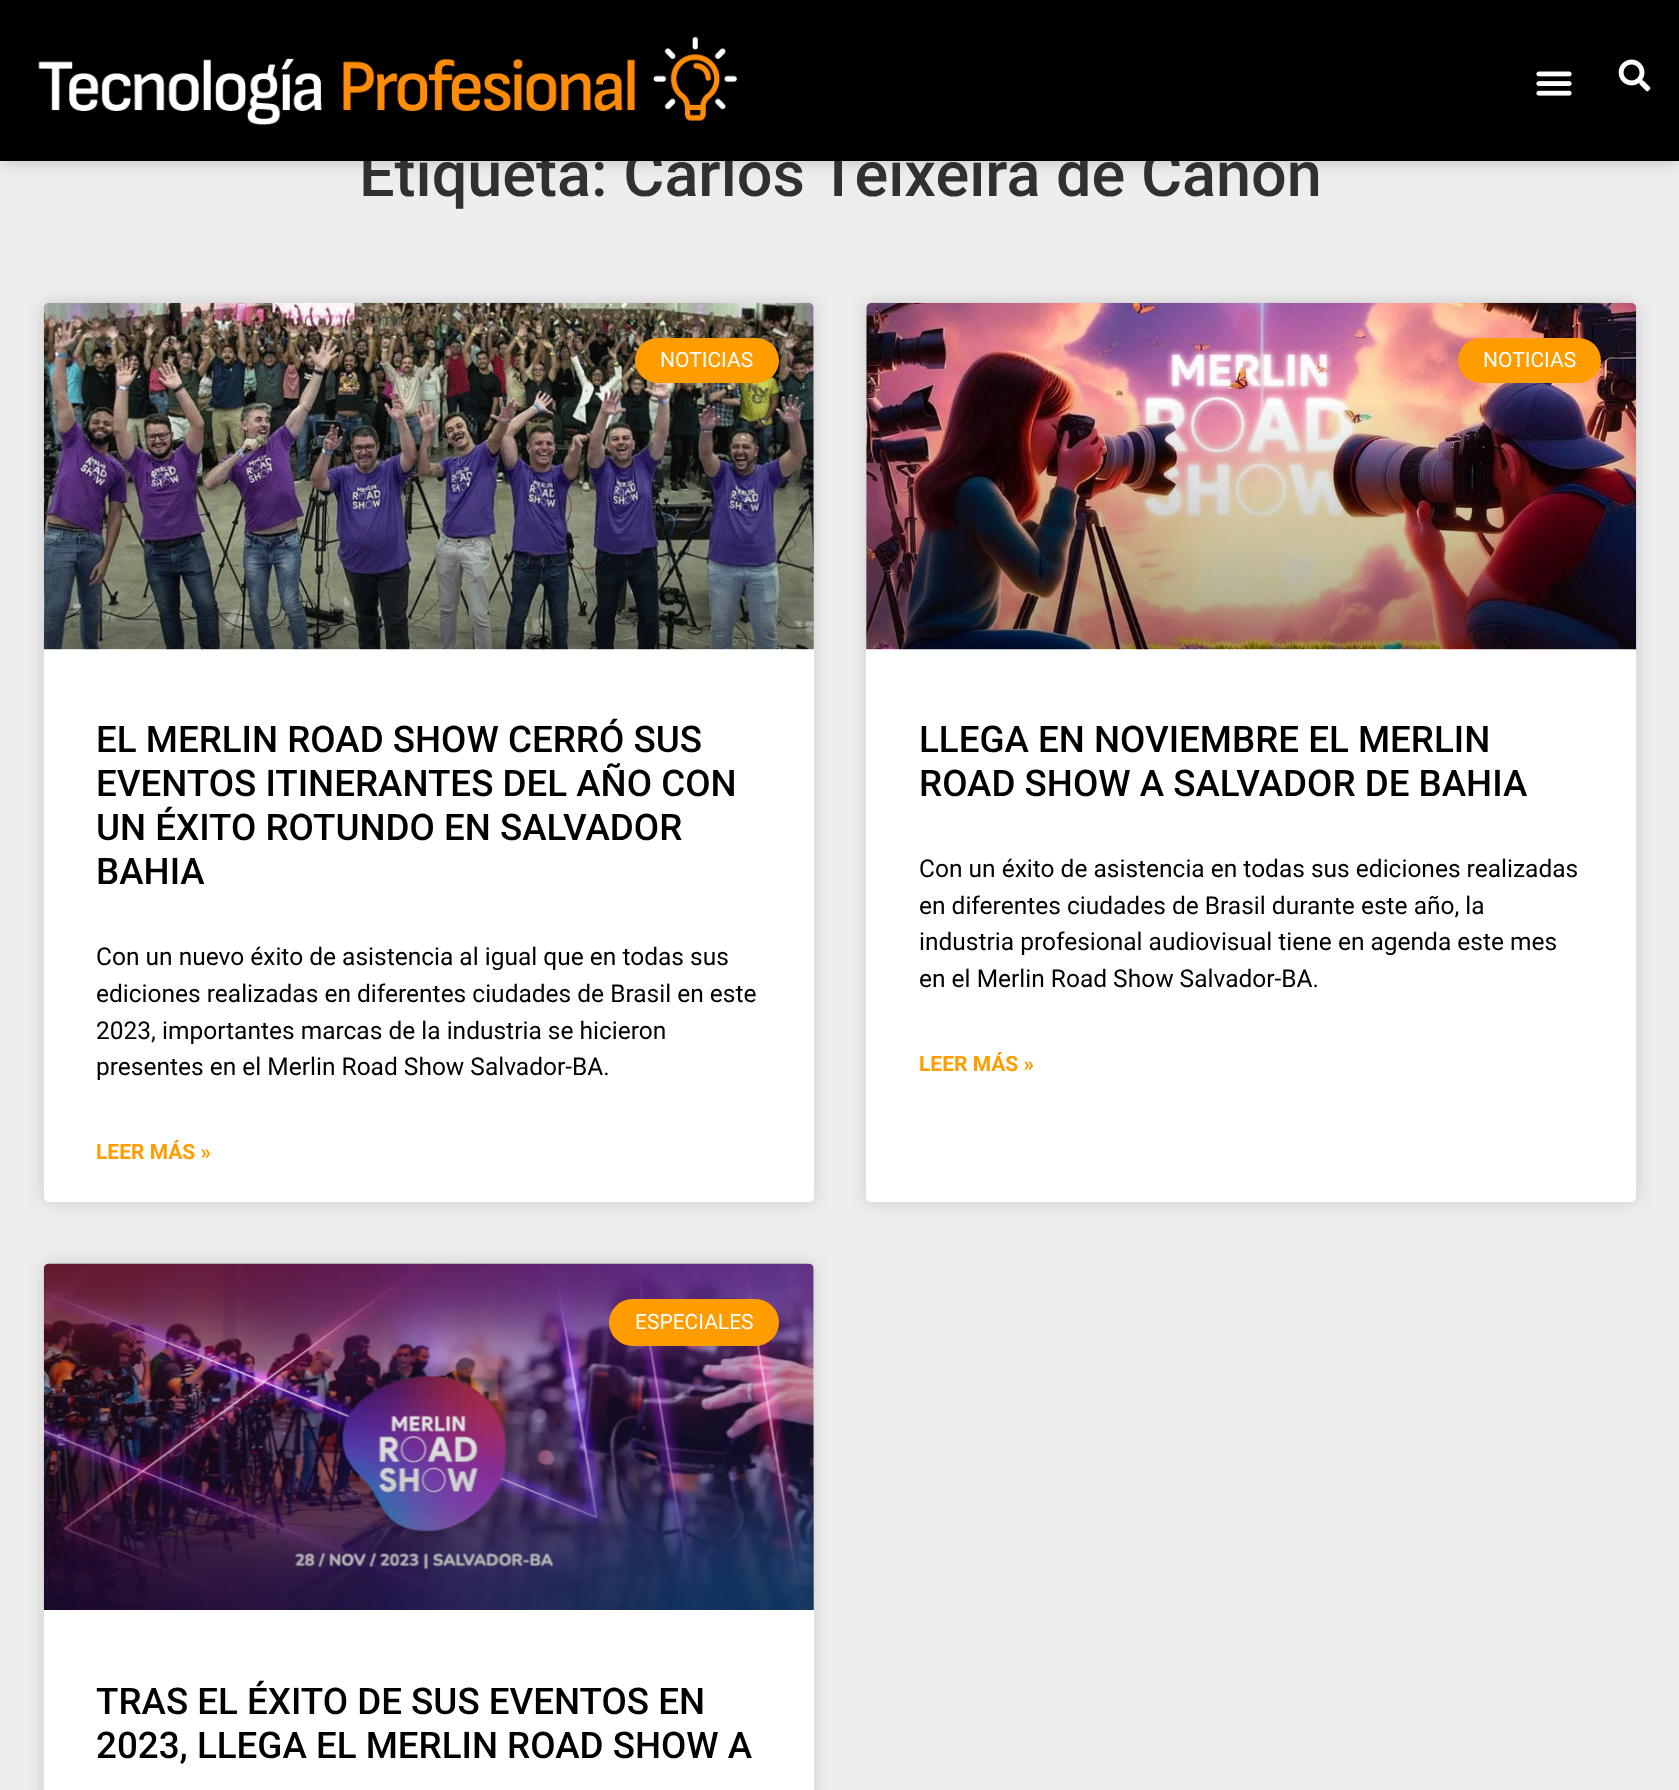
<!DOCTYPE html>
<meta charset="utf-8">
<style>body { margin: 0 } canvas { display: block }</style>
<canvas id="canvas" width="1679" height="1790"></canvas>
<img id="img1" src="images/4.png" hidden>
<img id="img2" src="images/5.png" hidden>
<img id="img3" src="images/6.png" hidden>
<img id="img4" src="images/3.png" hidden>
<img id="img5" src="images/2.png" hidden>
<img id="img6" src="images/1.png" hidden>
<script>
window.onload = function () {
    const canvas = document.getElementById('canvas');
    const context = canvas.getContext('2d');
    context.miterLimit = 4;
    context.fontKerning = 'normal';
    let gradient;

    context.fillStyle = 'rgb(238, 238, 238)';
    context.fillRect(0, 0, 1679, 1790);
    context.fillStyle = 'rgba(0, 0, 0, 0.2)';
    context.filter = 'blur(9px)';
    context.beginPath();
    context.rect(0, 0, 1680, 161);
    context.fill();
    context.filter = 'none';
    context.fillStyle = 'rgba(0, 0, 0, 0.15)';
    context.filter = 'blur(9px)';
    context.beginPath();
    context.roundRect(44, 303, 770, 899, 5);
    context.fill();
    context.filter = 'none';
    context.fillStyle = 'rgb(255, 255, 255)';
    context.beginPath();
    context.roundRect(44, 303, 770, 899, 5);
    context.fill();
    context.drawImage(document.getElementById('img1'), 43, 302, 771, 348);
    gradient = context.createLinearGradient(429, 649, 429, 303);
    gradient.addColorStop(0, 'rgba(0, 0, 0, 0.35)');
    gradient.addColorStop(0.75, 'rgba(0, 0, 0, 0)');
    context.fillStyle = gradient;
    context.fillRect(44, 405, 770, 244);
    context.fillStyle = 'rgb(255, 156, 0)';
    context.beginPath();
    context.roundRect(635, 338, 144, 45, 22.5);
    context.fill();
    context.fillStyle = 'rgba(0, 0, 0, 0.15)';
    context.filter = 'blur(9px)';
    context.beginPath();
    context.roundRect(866, 303, 770, 899, 5);
    context.fill();
    context.filter = 'none';
    context.fillStyle = 'rgb(255, 255, 255)';
    context.beginPath();
    context.roundRect(866, 303, 770, 899, 5);
    context.fill();
    context.drawImage(document.getElementById('img2'), 866, 302, 771, 348);
    gradient = context.createLinearGradient(1251, 649, 1251, 303);
    gradient.addColorStop(0, 'rgba(0, 0, 0, 0.35)');
    gradient.addColorStop(0.75, 'rgba(0, 0, 0, 0)');
    context.fillStyle = gradient;
    context.fillRect(866, 405, 770, 244);
    context.fillStyle = 'rgb(255, 156, 0)';
    context.beginPath();
    context.roundRect(1458, 338, 143, 45, 22.5);
    context.fill();
    context.fillStyle = 'rgba(0, 0, 0, 0.15)';
    context.filter = 'blur(9px)';
    context.beginPath();
    context.roundRect(44, 1264, 770, 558, 5);
    context.fill();
    context.filter = 'none';
    context.fillStyle = 'rgb(255, 255, 255)';
    context.beginPath();
    context.roundRect(44, 1264, 770, 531, 5);
    context.fill();
    context.drawImage(document.getElementById('img3'), 43, 1263, 771, 347);
    gradient = context.createLinearGradient(429, 1610, 429, 1264);
    gradient.addColorStop(0, 'rgba(0, 0, 0, 0.35)');
    gradient.addColorStop(0.75, 'rgba(0, 0, 0, 0)');
    context.fillStyle = gradient;
    context.fillRect(44, 1366, 770, 244);
    context.fillStyle = 'rgb(255, 156, 0)';
    context.beginPath();
    context.roundRect(609, 1299, 170, 47, 23.5);
    context.fill();
    context.font = '500 63px Roboto';
    context.fillStyle = 'rgb(48, 48, 48)';
    context.fillText('Etiqueta: Carlos Teixeira de Canon', 359, 196);
    context.fillStyle = 'rgb(0, 0, 0)';
    context.fillRect(0, 0, 1679, 161);
    context.drawImage(document.getElementById('img4'), 1618, 59, 33, 33);
    context.drawImage(document.getElementById('img5'), 1536, 71, 36, 25);
    context.drawImage(document.getElementById('img6'), 38, 36, 699, 89);
    context.font = '21px Roboto';
    context.fillStyle = 'rgb(255, 255, 255)';
    context.fillText('NOTICIAS', 660, 367);
    context.font = '500 36.75px Roboto';
    context.fillStyle = 'rgb(0, 0, 0)';
    context.fillText('EL MERLIN ROAD SHOW CERRÓ SUS', 96, 752);
    context.fillText('EVENTOS ITINERANTES DEL AÑO CON', 96, 796);
    context.fillText('UN ÉXITO ROTUNDO EN SALVADOR', 96, 840);
    context.fillText('BAHIA', 96, 884);
    context.font = '24.5px Roboto';
    context.fillText('Con un nuevo éxito de asistencia al igual que en todas sus', 96, 965);
    context.fillText('ediciones realizadas en diferentes ciudades de Brasil en este', 96, 1002);
    context.fillText('2023, importantes marcas de la industria se hicieron', 96, 1039);
    context.fillText('presentes en el Merlin Road Show Salvador-BA.', 96, 1075);
    context.font = 'bold 21px Roboto';
    context.fillStyle = 'rgb(255, 156, 0)';
    context.fillText('LEER MÁS »', 96, 1159);
    context.font = '21px Roboto';
    context.fillStyle = 'rgb(255, 255, 255)';
    context.fillText('NOTICIAS', 1483, 367);
    context.font = '500 36.75px Roboto';
    context.fillStyle = 'rgb(0, 0, 0)';
    context.fillText('LLEGA EN NOVIEMBRE EL MERLIN', 919, 752);
    context.fillText('ROAD SHOW A SALVADOR DE BAHIA', 919, 796);
    context.font = '24.5px Roboto';
    context.fillText('Con un éxito de asistencia en todas sus ediciones realizadas', 919, 877);
    context.fillText('en diferentes ciudades de Brasil durante este año, la', 919, 914);
    context.fillText('industria profesional audiovisual tiene en agenda este mes', 919, 950);
    context.fillText('en el Merlin Road Show Salvador-BA.', 919, 987);
    context.font = 'bold 21px Roboto';
    context.fillStyle = 'rgb(255, 156, 0)';
    context.fillText('LEER MÁS »', 919, 1071);
    context.font = '21px Roboto';
    context.fillStyle = 'rgb(255, 255, 255)';
    context.fillText('ESPECIALES', 635, 1329);
    context.font = '500 36.75px Roboto';
    context.fillStyle = 'rgb(0, 0, 0)';
    context.fillText('TRAS EL ÉXITO DE SUS EVENTOS EN', 96, 1714);
    context.fillText('2023, LLEGA EL MERLIN ROAD SHOW A', 96, 1758);
};
</script>
